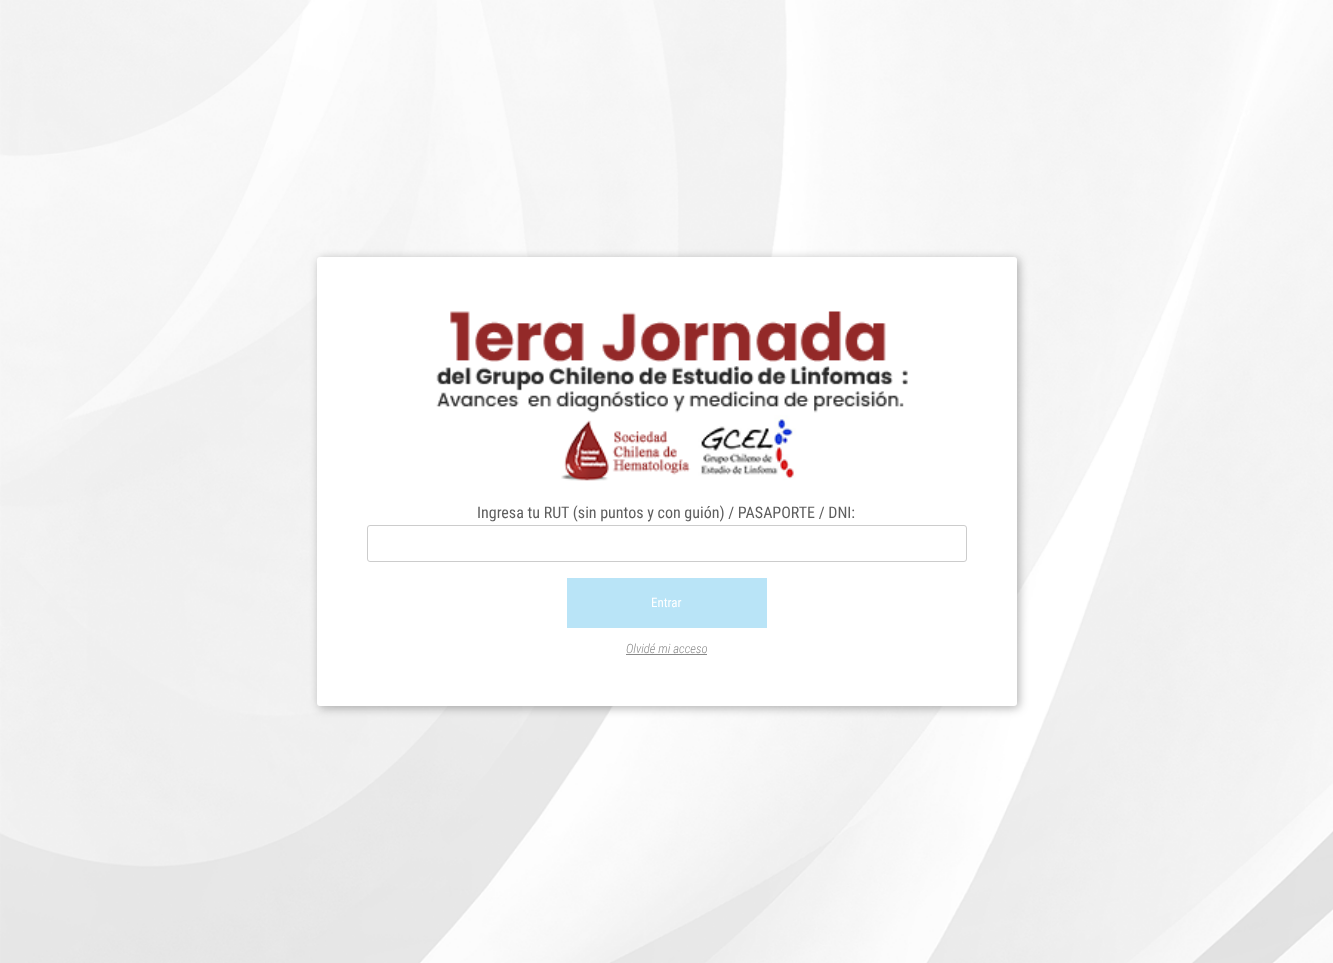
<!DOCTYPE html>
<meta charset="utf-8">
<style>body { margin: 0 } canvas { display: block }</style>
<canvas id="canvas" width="1333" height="963"></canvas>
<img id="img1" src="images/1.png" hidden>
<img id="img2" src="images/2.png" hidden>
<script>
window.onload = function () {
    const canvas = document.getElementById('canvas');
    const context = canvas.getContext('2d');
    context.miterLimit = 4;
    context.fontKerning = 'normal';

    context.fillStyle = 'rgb(255, 255, 255)';
    context.fillRect(0, 0, 1333, 963);
    context.drawImage(document.getElementById('img1'), 0, 0, 1333, 963);
    context.fillStyle = 'rgba(0, 0, 0, 0.3)';
    context.filter = 'blur(5px)';
    context.beginPath();
    context.roundRect(319, 259, 700, 449, 3);
    context.fill();
    context.filter = 'none';
    context.fillStyle = 'rgb(255, 255, 255)';
    context.beginPath();
    context.roundRect(317, 257, 700, 449, 3);
    context.fill();
    context.drawImage(document.getElementById('img2'), 436, 311, 472, 170);
    context.beginPath();
    context.roundRect(367.5, 525.5, 599, 36, 2.5);
    context.strokeStyle = 'rgb(204, 204, 204)';
    context.stroke();
    context.fillStyle = 'rgb(185, 228, 247)';
    context.fillRect(567, 578, 200, 50);
    context.fillStyle = 'rgb(137, 137, 137)';
    context.fillRect(626, 654, 81, 1);
    context.font = '16px Roboto Condensed';
    context.fillStyle = 'rgb(94, 94, 94)';
    context.fillText('Ingresa tu RUT (sin puntos y con guión) / PASAPORTE / DNI:', 477, 518);
    context.font = '13px Roboto Condensed';
    context.fillStyle = 'rgb(255, 255, 255)';
    context.fillText('Entrar', 651, 607);
    context.font = 'italic 300 12.75px Roboto Condensed';
    context.fillStyle = 'rgb(137, 137, 137)';
    context.fillText('Olvidé mi acceso', 626, 653);
};
</script>
